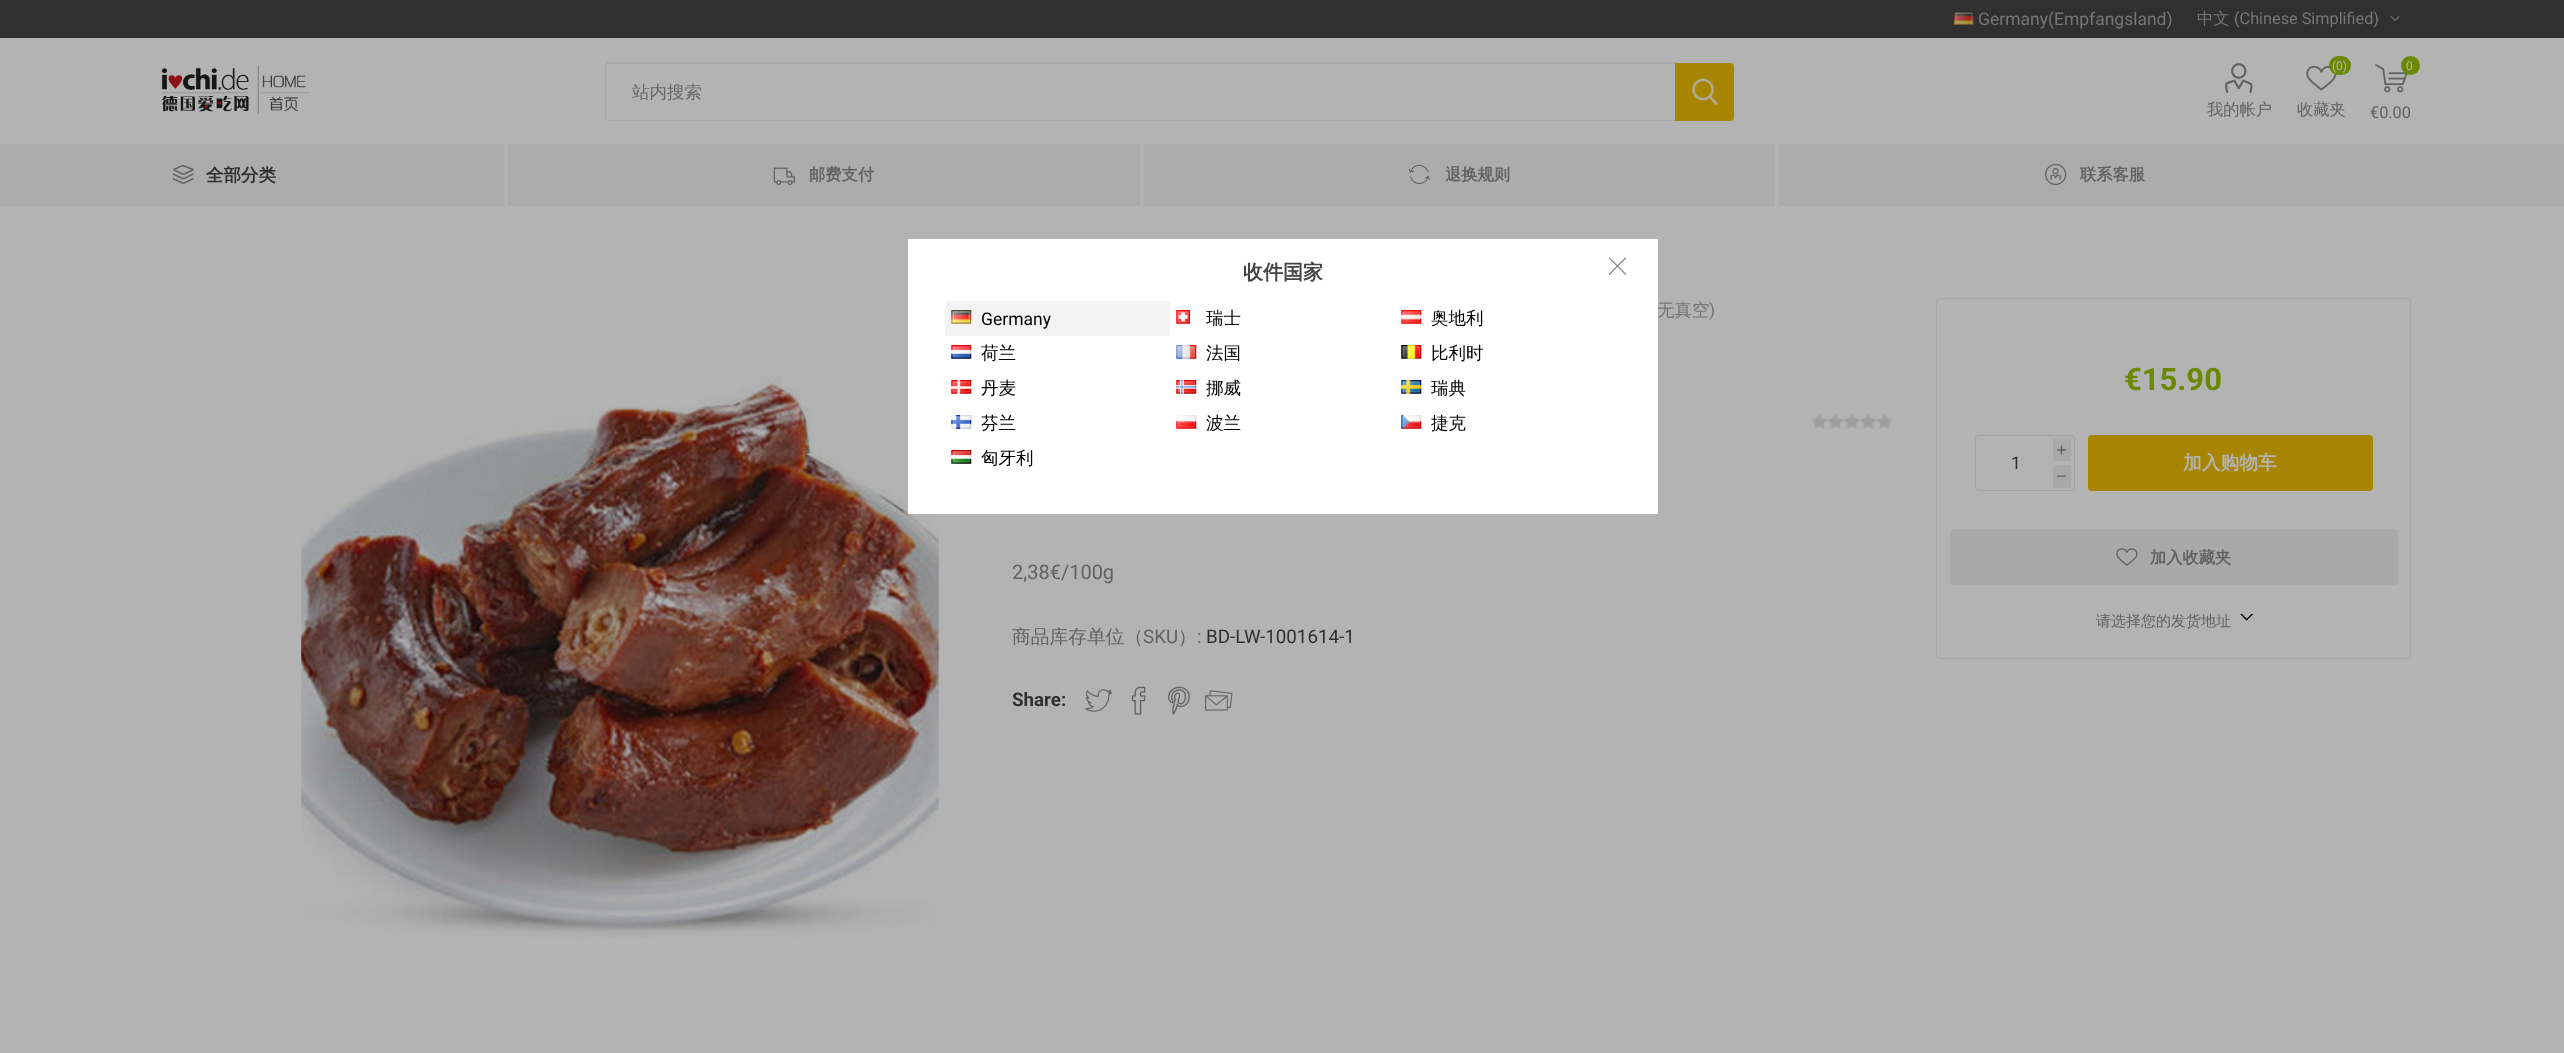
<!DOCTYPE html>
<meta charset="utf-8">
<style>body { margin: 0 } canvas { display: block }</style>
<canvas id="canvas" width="2564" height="1053"></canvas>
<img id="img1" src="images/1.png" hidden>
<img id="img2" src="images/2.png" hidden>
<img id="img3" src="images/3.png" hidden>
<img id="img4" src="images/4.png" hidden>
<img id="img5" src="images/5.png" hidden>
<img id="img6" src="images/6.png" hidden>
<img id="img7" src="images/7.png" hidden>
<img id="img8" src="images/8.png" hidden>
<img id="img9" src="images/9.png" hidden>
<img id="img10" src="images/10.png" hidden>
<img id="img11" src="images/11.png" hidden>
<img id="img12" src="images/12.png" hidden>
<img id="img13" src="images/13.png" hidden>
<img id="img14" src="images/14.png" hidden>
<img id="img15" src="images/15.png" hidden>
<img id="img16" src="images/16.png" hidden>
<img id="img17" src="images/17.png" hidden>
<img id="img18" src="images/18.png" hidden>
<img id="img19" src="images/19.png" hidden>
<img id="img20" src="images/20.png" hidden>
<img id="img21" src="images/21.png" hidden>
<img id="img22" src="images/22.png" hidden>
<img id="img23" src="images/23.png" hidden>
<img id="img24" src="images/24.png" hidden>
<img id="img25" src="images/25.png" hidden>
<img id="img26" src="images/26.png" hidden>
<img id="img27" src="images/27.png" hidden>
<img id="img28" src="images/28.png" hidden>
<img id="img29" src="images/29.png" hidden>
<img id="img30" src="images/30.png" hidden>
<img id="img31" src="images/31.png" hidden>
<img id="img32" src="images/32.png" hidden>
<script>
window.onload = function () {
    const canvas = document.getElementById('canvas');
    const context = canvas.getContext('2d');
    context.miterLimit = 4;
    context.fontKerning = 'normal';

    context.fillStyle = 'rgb(179, 179, 179)';
    context.fillRect(0, 0, 2564, 1053);
    context.fillStyle = 'rgb(48, 48, 48)';
    context.fillRect(0, 0, 2564, 38);
    context.drawImage(document.getElementById('img1'), 1953, 11, 21, 14);
    context.drawImage(document.getElementById('img2'), 2390, 16, 10, 5);
    context.drawImage(document.getElementById('img3'), 161, 66, 149, 48);
    context.fillStyle = 'rgb(167, 167, 167)';
    context.beginPath();
    context.moveTo(609, 62);
    context.lineTo(1675, 62);
    context.lineTo(1675, 121);
    context.lineTo(609, 121);
    context.bezierCurveTo(607, 121, 605, 120, 605, 118);
    context.lineTo(605, 66);
    context.bezierCurveTo(605, 64, 607, 62, 609, 62);
    context.closePath();
    context.moveTo(609, 64);
    context.lineTo(1675, 64);
    context.lineTo(1675, 120);
    context.lineTo(609, 120);
    context.bezierCurveTo(607, 120, 606, 119, 606, 118);
    context.lineTo(606, 66);
    context.bezierCurveTo(606, 65, 607, 64, 609, 64);
    context.closePath();
    context.fill('evenodd');
    context.fillStyle = 'rgb(167, 133, 0)';
    context.beginPath();
    context.roundRect(1675, 63, 59, 58, [0, 4, 4, 0]);
    context.fill();
    context.drawImage(document.getElementById('img4'), 1692, 78, 26, 28);
    context.drawImage(document.getElementById('img5'), 2225, 63, 28, 31);
    context.drawImage(document.getElementById('img6'), 2306, 65, 31, 26);
    context.fillStyle = 'rgb(106, 137, 0)';
    context.beginPath();
    context.roundRect(2329, 56, 22, 19, 9.5);
    context.fill();
    context.drawImage(document.getElementById('img7'), 2375, 64, 33, 29);
    context.beginPath();
    context.arc(2410.5, 65.5, 9.5, 0, 2 * Math.PI);
    context.fill();
    context.fillStyle = 'rgb(172, 172, 172)';
    context.fillRect(0, 144, 2564, 62);
    context.fillStyle = 'rgb(179, 179, 179)';
    context.fillRect(504, 144, 4, 62);
    context.drawImage(document.getElementById('img8'), 172, 165, 22, 19);
    context.fillRect(1140, 144, 4, 62);
    context.drawImage(document.getElementById('img9'), 773, 167, 22, 18);
    context.fillRect(1775, 144, 4, 62);
    context.drawImage(document.getElementById('img10'), 1408, 164, 22, 20);
    context.drawImage(document.getElementById('img11'), 2045, 163, 22, 23);
    context.drawImage(document.getElementById('img12'), 301, 376, 638, 562);
    context.drawImage(document.getElementById('img13'), 1811, 413, 82, 16);
    context.beginPath();
    context.roundRect(1936.5, 298.5, 474, 360, 3.5);
    context.strokeStyle = 'rgb(167, 167, 167)';
    context.stroke();
    context.beginPath();
    context.roundRect(1975.5, 435.5, 99, 55, 3.5);
    context.strokeStyle = 'rgb(162, 162, 162)';
    context.stroke();
    context.fillStyle = 'rgb(169, 169, 169)';
    context.fillRect(2053, 439, 18, 22);
    context.fillRect(2053, 465, 18, 23);
    context.fillStyle = 'rgb(167, 133, 0)';
    context.beginPath();
    context.roundRect(2088, 435, 285, 56, 4);
    context.fill();
    context.fillStyle = 'rgb(169, 169, 169)';
    context.beginPath();
    context.roundRect(1950, 529, 448, 56, 4);
    context.fill();
    context.drawImage(document.getElementById('img14'), 2116, 548, 22, 18);
    context.fillStyle = 'rgb(0, 0, 0)';
    context.beginPath();
    context.moveTo(2252, 613.5);
    context.lineTo(2253, 614.5);
    context.lineTo(2246.5, 620.5);
    context.lineTo(2246, 619.5);
    context.closePath();
    context.fill();
    context.beginPath();
    context.moveTo(2241.5, 613.5);
    context.lineTo(2247.5, 619.5);
    context.lineTo(2246.5, 620.5);
    context.lineTo(2240.5, 614.5);
    context.closePath();
    context.fill();
    context.drawImage(document.getElementById('img15'), 1085, 689, 27, 23);
    context.drawImage(document.getElementById('img16'), 1131, 686, 15, 29);
    context.drawImage(document.getElementById('img17'), 1168, 686, 22, 29);
    context.drawImage(document.getElementById('img18'), 1205, 690, 28, 21);
    context.font = '17.5px Roboto';
    context.fillStyle = 'rgb(118, 118, 118)';
    context.fillText('Germany(Empfangsland)', 1978, 25);
    context.font = '500 16.25px WenQuanYi Zen Hei';
    context.fillText('中文', 2197, 24);
    context.font = '16.25px Roboto';
    context.fillText('(Chinese Simplified)', 2234, 24);
    context.font = '500 17.5px WenQuanYi Zen Hei';
    context.fillStyle = 'rgb(104, 104, 104)';
    context.fillText('站内搜索', 632, 98);
    context.font = '500 16.25px WenQuanYi Zen Hei';
    context.fillStyle = 'rgb(98, 98, 98)';
    context.fillText('我的帐户', 2207, 115);
    context.font = '12px Roboto';
    context.fillStyle = 'rgb(179, 179, 179)';
    context.fillText('(0)', 2332, 70);
    context.font = '500 16.25px WenQuanYi Zen Hei';
    context.fillStyle = 'rgb(98, 98, 98)';
    context.fillText('收藏夹', 2297, 115);
    context.font = '12px Roboto';
    context.fillStyle = 'rgb(179, 179, 179)';
    context.fillText('0', 2406, 70);
    context.font = '16.25px Roboto';
    context.fillStyle = 'rgb(98, 98, 98)';
    context.fillText('€0.00', 2370, 118);
    context.font = 'bold 17.5px WenQuanYi Zen Hei';
    context.fillStyle = 'rgb(48, 48, 48)';
    context.fillText('全部分类', 206, 181);
    context.font = 'bold 16.25px WenQuanYi Zen Hei';
    context.fillStyle = 'rgb(98, 98, 98)';
    context.fillText('邮费支付', 809, 180);
    context.fillText('退换规则', 1445, 180);
    context.fillText('联系客服', 2080, 180);
    context.font = '500 17.5px WenQuanYi Zen Hei';
    context.fillStyle = 'rgb(118, 118, 118)';
    context.fillText('无真空', 1657, 316);
    context.font = '17.5px Roboto';
    context.fillText(')', 1709, 316);
    context.font = 'bold 31px Roboto';
    context.fillStyle = 'rgb(106, 137, 0)';
    context.fillText('€15.90', 2124, 390);
    context.font = '9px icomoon';
    context.fillStyle = 'rgb(98, 98, 98)';
    context.fillText('i', 2057, 454);
    context.font = '17.5px Roboto';
    context.fillStyle = 'rgb(48, 48, 48)';
    context.fillText('1', 2011, 469);
    context.font = '9px icomoon';
    context.fillStyle = 'rgb(98, 98, 98)';
    context.fillText('h', 2057, 480);
    context.font = 'bold 18.75px WenQuanYi Zen Hei';
    context.fillStyle = 'rgb(179, 179, 179)';
    context.fillText('加入购物车', 2183, 469);
    context.font = 'bold 16.25px WenQuanYi Zen Hei';
    context.fillStyle = 'rgb(98, 98, 98)';
    context.fillText('加入收藏夹', 2150, 563);
    context.font = '500 15px WenQuanYi Zen Hei';
    context.fillText('请选择您的发货地址', 2096, 626);
    context.font = '20px Roboto';
    context.fillText('2,38€/100g', 1012, 579);
    context.font = '500 18.75px WenQuanYi Zen Hei';
    context.fillText('商品库存单位（', 1012, 643);
    context.font = '18.75px Roboto';
    context.fillText('SKU', 1143, 643);
    context.font = '500 18.75px WenQuanYi Zen Hei';
    context.fillText('）', 1178, 643);
    context.font = '18.75px Roboto';
    context.fillText(':', 1197, 643);
    context.fillStyle = 'rgb(48, 48, 48)';
    context.fillText('BD-LW-1001614-1', 1206, 643);
    context.font = 'bold 18.75px Roboto';
    context.fillText('Share:', 1012, 706);
    context.fillStyle = 'rgb(255, 255, 255)';
    context.fillRect(908, 239, 750, 275);
    context.font = 'bold 20px WenQuanYi Zen Hei';
    context.fillStyle = 'rgb(68, 68, 68)';
    context.fillText('收件国家', 1243, 279);
    context.drawImage(document.getElementById('img19'), 1609, 257, 17, 18);
    context.fillStyle = 'rgb(243, 243, 243)';
    context.fillRect(945, 301, 225, 35);
    context.drawImage(document.getElementById('img20'), 951, 310, 21, 14);
    context.font = '17.5px Roboto';
    context.fillStyle = 'rgb(0, 0, 0)';
    context.fillText('Germany', 981, 325);
    context.drawImage(document.getElementById('img21'), 1176, 310, 14, 14);
    context.font = '500 17.5px WenQuanYi Zen Hei';
    context.fillText('瑞士', 1206, 324);
    context.drawImage(document.getElementById('img22'), 1401, 310, 21, 14);
    context.fillText('奥地利', 1431, 324);
    context.drawImage(document.getElementById('img23'), 951, 345, 21, 14);
    context.fillText('荷兰', 981, 359);
    context.drawImage(document.getElementById('img24'), 1176, 345, 21, 14);
    context.fillText('法国', 1206, 359);
    context.drawImage(document.getElementById('img25'), 1401, 345, 21, 14);
    context.fillText('比利时', 1431, 359);
    context.drawImage(document.getElementById('img26'), 951, 380, 21, 14);
    context.fillText('丹麦', 981, 394);
    context.drawImage(document.getElementById('img27'), 1176, 380, 21, 14);
    context.fillText('挪威', 1206, 394);
    context.drawImage(document.getElementById('img28'), 1401, 380, 21, 14);
    context.fillText('瑞典', 1431, 394);
    context.drawImage(document.getElementById('img29'), 951, 415, 21, 14);
    context.fillText('芬兰', 981, 429);
    context.drawImage(document.getElementById('img30'), 1176, 415, 21, 14);
    context.fillText('波兰', 1206, 429);
    context.drawImage(document.getElementById('img31'), 1401, 415, 21, 14);
    context.fillText('捷克', 1431, 429);
    context.drawImage(document.getElementById('img32'), 951, 450, 21, 14);
    context.fillText('匈牙利', 981, 464);
};
</script>
